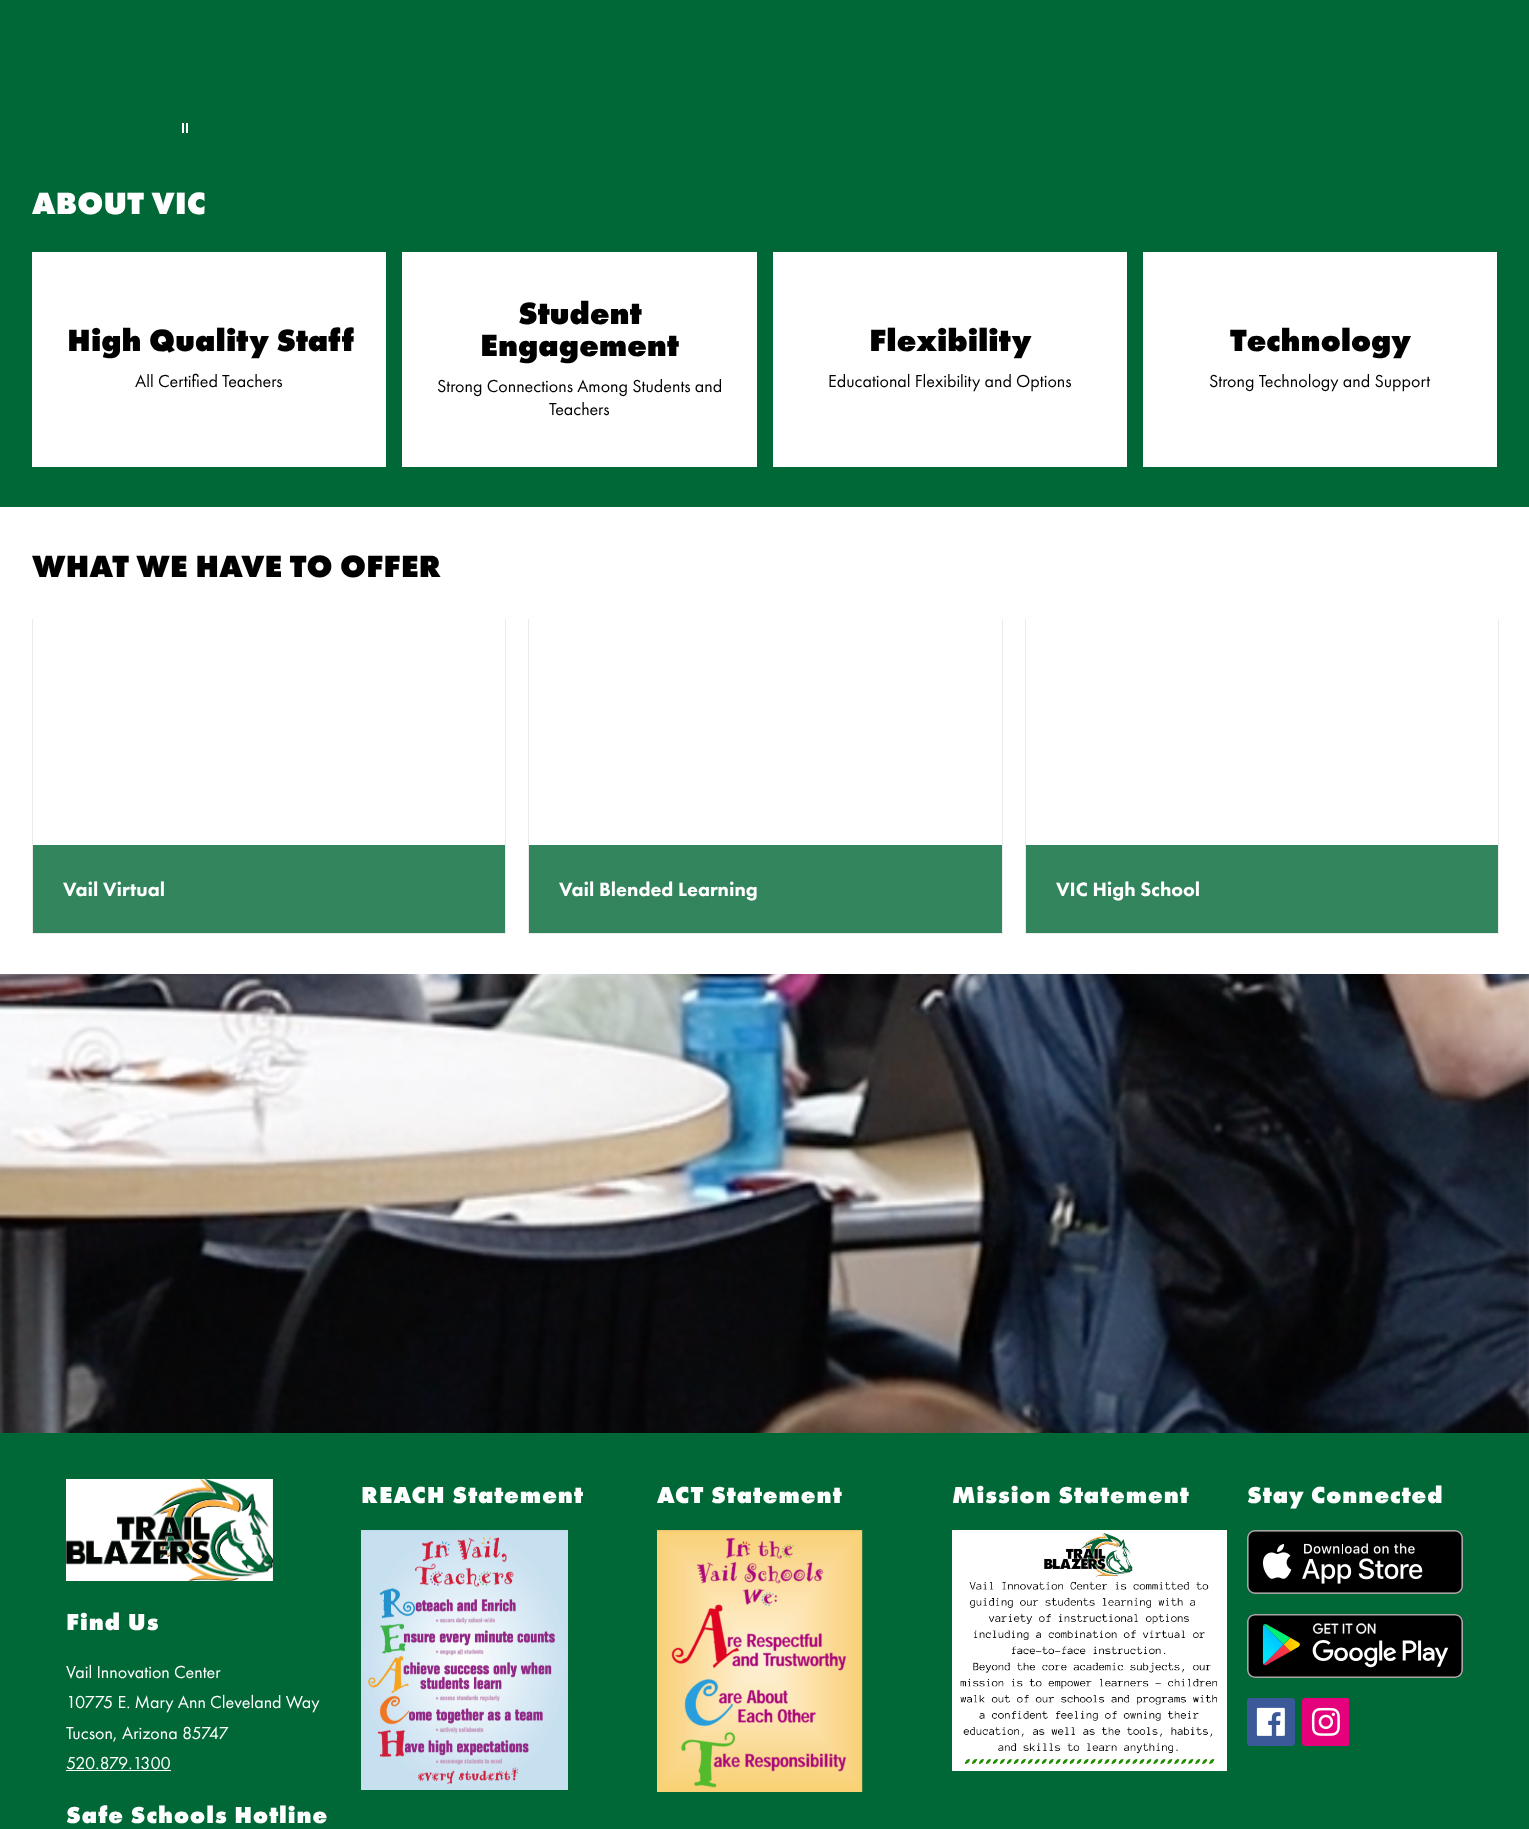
<!DOCTYPE html>
<meta charset="utf-8">
<style>body { margin: 0 } canvas { display: block }</style>
<canvas id="canvas" width="1529" height="1829"></canvas>
<img id="img1" src="images/1.png" hidden>
<img id="img2" src="images/2.png" hidden>
<img id="img3" src="images/3.png" hidden>
<img id="img4" src="images/4.png" hidden>
<img id="img5" src="images/5.png" hidden>
<img id="img6" src="images/6.png" hidden>
<img id="img7" src="images/7.png" hidden>
<img id="img8" src="images/8.png" hidden>
<img id="img9" src="images/9.png" hidden>
<script>
window.onload = function () {
    const canvas = document.getElementById('canvas');
    const context = canvas.getContext('2d');
    context.miterLimit = 4;
    context.fontKerning = 'normal';

    context.fillStyle = 'rgb(255, 255, 255)';
    context.fillRect(0, 0, 1529, 1829);
    context.fillStyle = 'rgb(0, 103, 54)';
    context.fillRect(0, 0, 1529, 507);
    context.fillStyle = 'rgb(255, 255, 255)';
    context.beginPath();
    context.moveTo(184, 123);
    context.lineTo(182, 123);
    context.lineTo(182, 133);
    context.lineTo(184, 133);
    context.closePath();
    context.moveTo(188, 123);
    context.lineTo(186, 123);
    context.lineTo(186, 133);
    context.lineTo(188, 133);
    context.closePath();
    context.fill('evenodd');
    context.fillRect(32, 252, 354, 215);
    context.fillRect(402, 252, 355, 215);
    context.fillRect(773, 252, 354, 215);
    context.fillRect(1143, 252, 354, 215);
    context.fillStyle = 'rgb(235, 235, 235)';
    context.beginPath();
    context.moveTo(506, 619);
    context.lineTo(506, 934);
    context.lineTo(505, 933);
    context.lineTo(505, 619);
    context.closePath();
    context.fill();
    context.fillStyle = 'rgba(0, 0, 0, 0.08)';
    context.beginPath();
    context.moveTo(506, 934);
    context.lineTo(32, 934);
    context.lineTo(33, 933);
    context.lineTo(505, 933);
    context.closePath();
    context.fill();
    context.beginPath();
    context.moveTo(32, 934);
    context.lineTo(32, 619);
    context.lineTo(33, 619);
    context.lineTo(33, 933);
    context.closePath();
    context.fill();
    context.fillStyle = 'rgb(51, 133, 94)';
    context.fillRect(33, 845, 472, 88);
    context.fillStyle = 'rgb(235, 235, 235)';
    context.beginPath();
    context.moveTo(1003, 619);
    context.lineTo(1003, 934);
    context.lineTo(1002, 933);
    context.lineTo(1002, 619);
    context.closePath();
    context.fill();
    context.fillStyle = 'rgba(0, 0, 0, 0.08)';
    context.beginPath();
    context.moveTo(1003, 934);
    context.lineTo(528, 934);
    context.lineTo(529, 933);
    context.lineTo(1002, 933);
    context.closePath();
    context.fill();
    context.beginPath();
    context.moveTo(528, 934);
    context.lineTo(528, 619);
    context.lineTo(529, 619);
    context.lineTo(529, 933);
    context.closePath();
    context.fill();
    context.fillStyle = 'rgb(51, 133, 94)';
    context.fillRect(529, 845, 473, 88);
    context.fillStyle = 'rgb(235, 235, 235)';
    context.beginPath();
    context.moveTo(1499, 619);
    context.lineTo(1499, 934);
    context.lineTo(1498, 933);
    context.lineTo(1498, 619);
    context.closePath();
    context.fill();
    context.fillStyle = 'rgba(0, 0, 0, 0.08)';
    context.beginPath();
    context.moveTo(1499, 934);
    context.lineTo(1025, 934);
    context.lineTo(1026, 933);
    context.lineTo(1498, 933);
    context.closePath();
    context.fill();
    context.beginPath();
    context.moveTo(1025, 934);
    context.lineTo(1025, 619);
    context.lineTo(1026, 619);
    context.lineTo(1026, 933);
    context.closePath();
    context.fill();
    context.fillStyle = 'rgb(51, 133, 94)';
    context.fillRect(1026, 845, 472, 88);
    context.drawImage(document.getElementById('img1'), 0, 974, 1529, 459);
    context.fillStyle = 'rgb(0, 103, 54)';
    context.fillRect(0, 1433, 1529, 396);
    context.drawImage(document.getElementById('img2'), 361, 1530, 207, 260);
    context.drawImage(document.getElementById('img3'), 657, 1530, 206, 262);
    context.drawImage(document.getElementById('img4'), 952, 1530, 275, 241);
    context.drawImage(document.getElementById('img5'), 1247, 1530, 216, 64);
    context.drawImage(document.getElementById('img6'), 1247, 1614, 216, 64);
    context.drawImage(document.getElementById('img7'), 1247, 1698, 48, 48);
    context.drawImage(document.getElementById('img8'), 1302, 1698, 47, 48);
    context.drawImage(document.getElementById('img9'), 66, 1479, 207, 102);
    context.fillStyle = 'rgb(255, 255, 255)';
    context.fillRect(66, 1770, 105, 1);
    context.font = '800 32px Futura PT';
    context.fillText('ABOUT VIC', 32, 214);
    context.fillStyle = 'rgb(0, 0, 0)';
    context.fillText('High Quality Staff', 67, 351);
    context.font = '18px Futura PT';
    context.fillText('All Certified Teachers', 135, 387);
    context.font = '800 32px Futura PT';
    context.fillText('Student', 518, 324);
    context.fillText('Engagement', 480, 356);
    context.font = '18px Futura PT';
    context.fillText('Strong Connections Among Students and', 437, 392);
    context.fillText('Teachers', 549, 415);
    context.font = '800 32px Futura PT';
    context.fillText('Flexibility', 869, 351);
    context.font = '18px Futura PT';
    context.fillText('Educational Flexibility and Options', 828, 387);
    context.font = '800 32px Futura PT';
    context.fillText('Technology', 1230, 351);
    context.font = '18px Futura PT';
    context.fillText('Strong Technology and Support', 1209, 387);
    context.font = '800 32px Futura PT';
    context.fillText('WHAT WE HAVE TO OFFER', 32, 577);
    context.font = '900 20px Futura PT';
    context.fillStyle = 'rgb(255, 255, 255)';
    context.fillText('Vail Virtual', 63, 896);
    context.fillText('Vail Blended Learning', 559, 896);
    context.fillText('VIC High School', 1056, 896);
    context.letterSpacing = '1px';
    context.font = '800 24px Futura PT';
    context.fillText('REACH Statement', 361, 1503);
    context.fillText('ACT Statement', 657, 1503);
    context.fillText('Mission Statement', 952, 1503);
    context.fillText('Stay Connected', 1247, 1503);
    context.fillText('Find Us', 66, 1630);
    context.letterSpacing = '0px';
    context.font = '18px Futura PT';
    context.fillText('Vail Innovation Center', 66, 1678);
    context.fillText('10775 E. Mary Ann Cleveland Way', 66, 1708);
    context.fillText('Tucson, Arizona 85747', 66, 1739);
    context.fillText('520.879.1300', 66, 1769);
    context.letterSpacing = '1px';
    context.font = '800 24px Futura PT';
    context.fillText('Safe Schools Hotline', 66, 1823);
};
</script>
